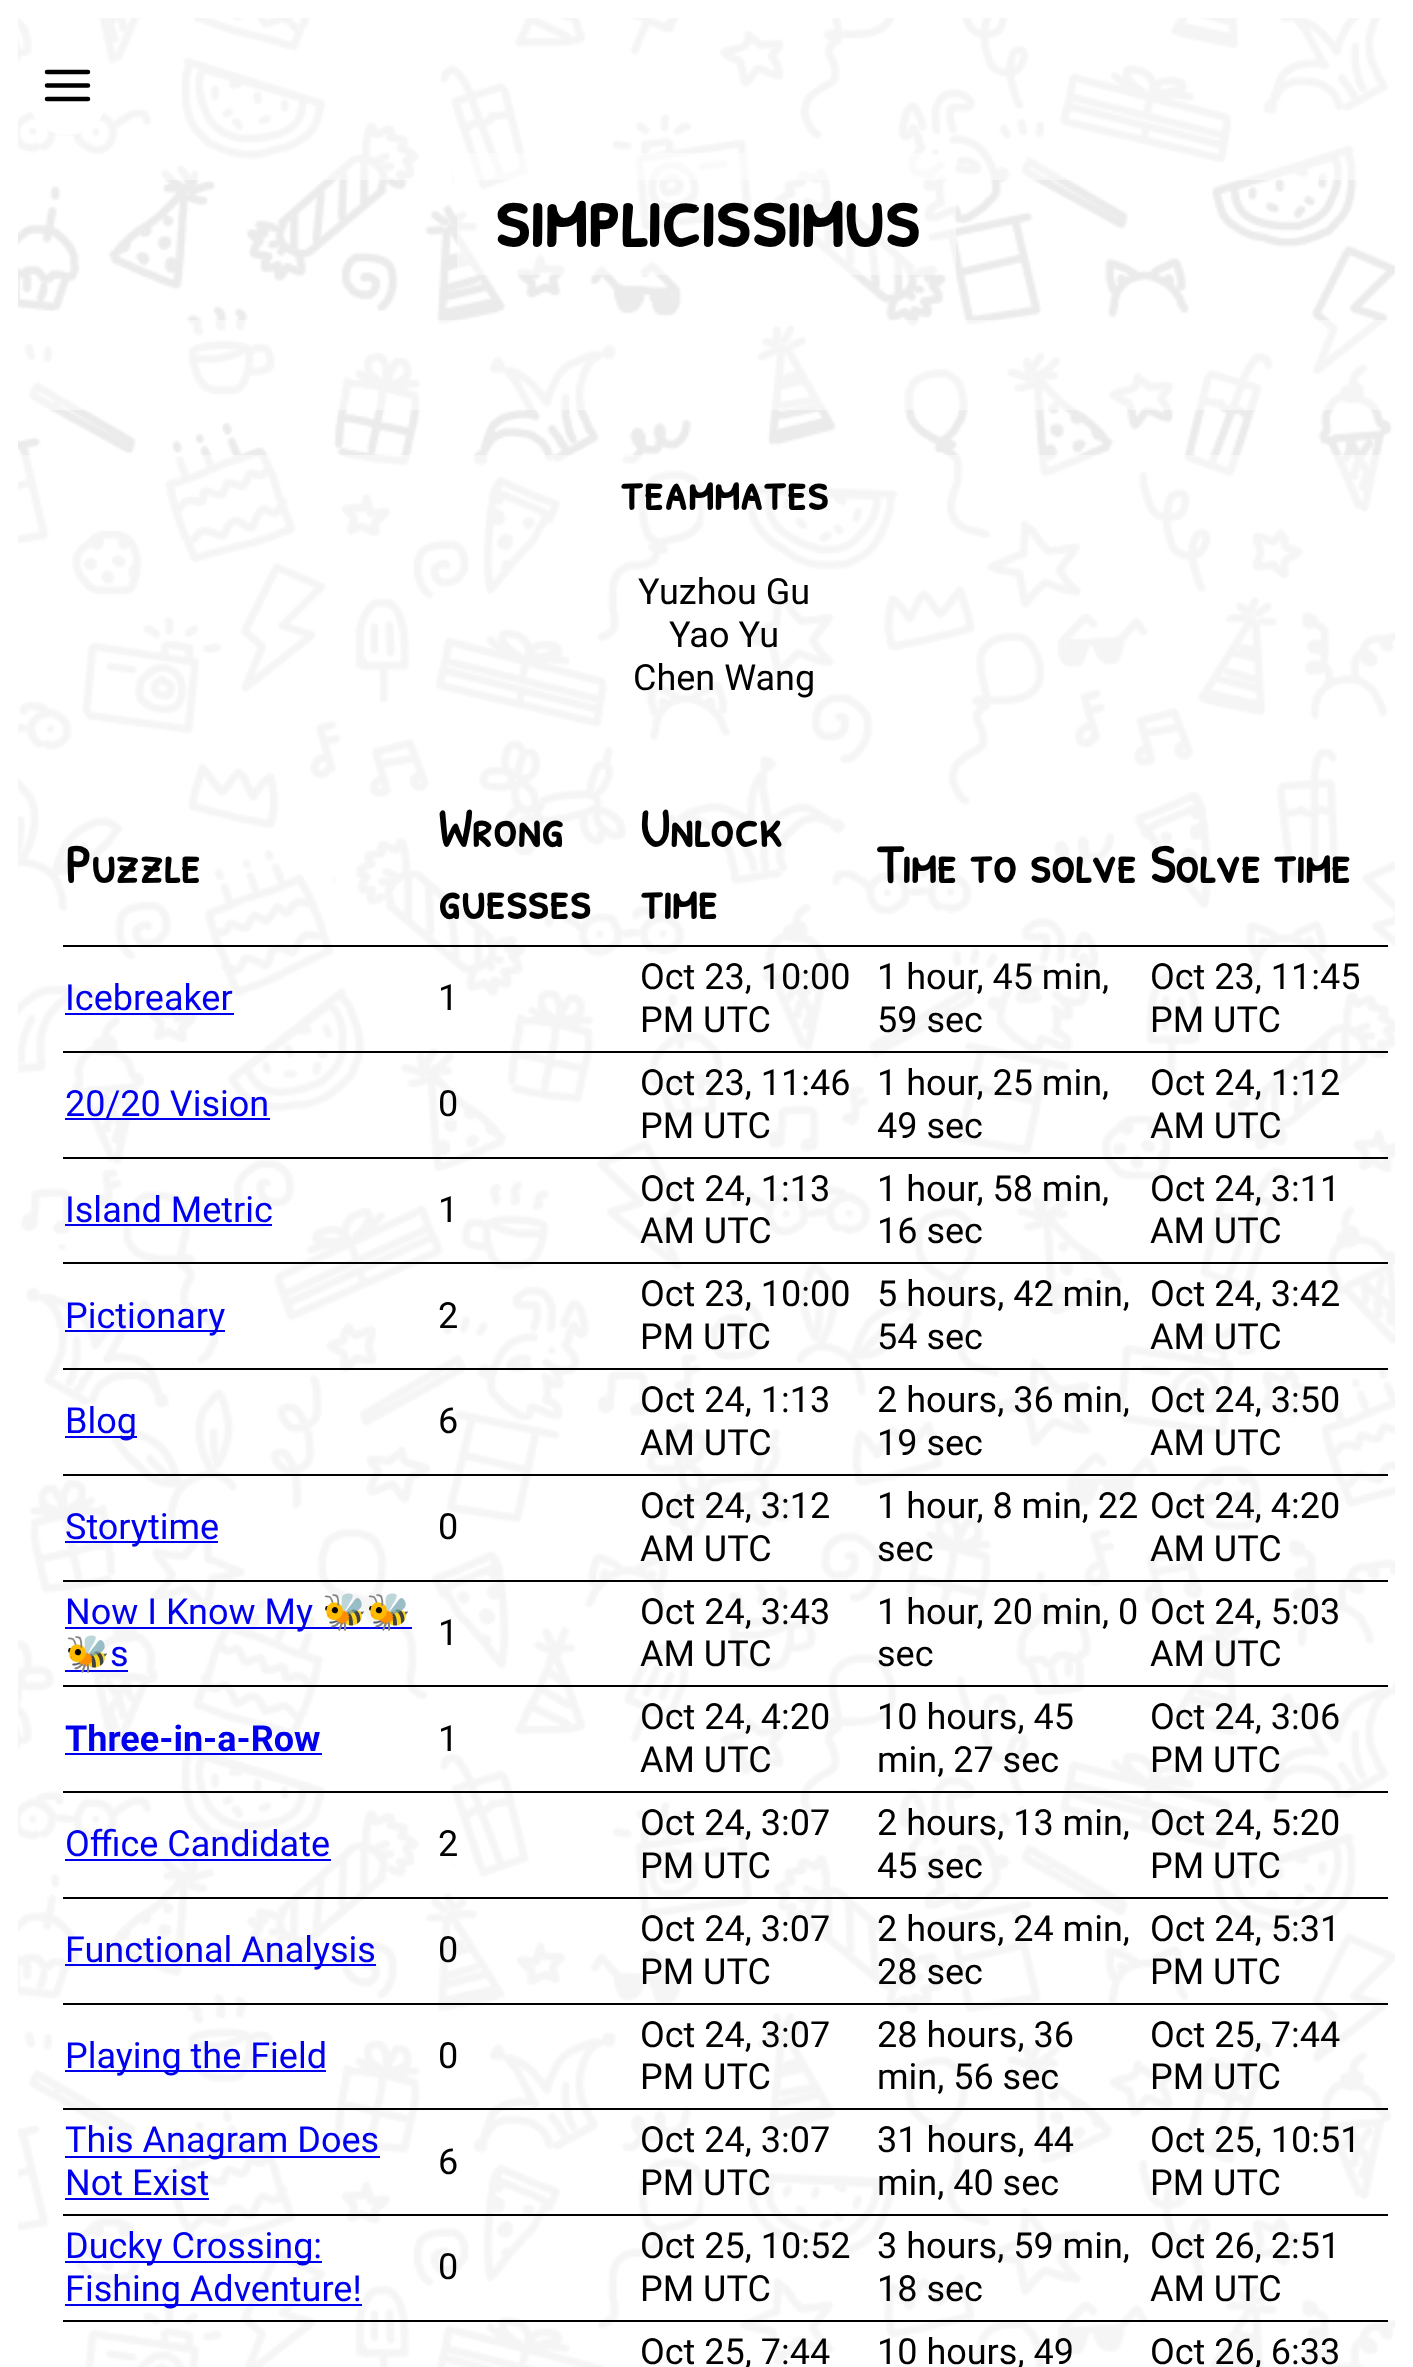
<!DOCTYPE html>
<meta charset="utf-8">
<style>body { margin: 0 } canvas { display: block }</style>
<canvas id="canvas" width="1413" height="2367"></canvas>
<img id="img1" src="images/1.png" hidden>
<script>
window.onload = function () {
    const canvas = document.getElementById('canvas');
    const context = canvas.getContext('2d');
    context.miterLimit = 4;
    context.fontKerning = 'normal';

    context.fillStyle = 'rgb(255, 255, 255)';
    context.fillRect(0, 0, 1413, 2367);
    context.drawImage(document.getElementById('img1'), 18, 18, 1377, 2349);
    context.fillStyle = 'rgba(255, 255, 255, 0.5)';
    context.fillRect(457, 153, 499, 122);
    context.fillRect(18, 18, 1371, 162);
    context.fillStyle = 'rgb(255, 255, 255)';
    context.beginPath();
    context.roundRect(27, 45, 81, 90, 40.5);
    context.fill();
    context.beginPath();
    context.moveTo(47, 85.5);
    context.lineTo(88, 85.5);
    context.moveTo(47, 72);
    context.lineTo(88, 72);
    context.moveTo(47, 99);
    context.lineTo(88, 99);
    context.strokeStyle = 'rgb(0, 0, 0)';
    context.lineWidth = 4.5;
    context.lineCap = 'round';
    context.lineJoin = 'round';
    context.stroke();
    context.fillStyle = 'rgba(255, 255, 255, 0.5)';
    context.fillRect(18, 320, 1369, 90);
    context.fillRect(18, 455, 1377, 290);
    context.fillRect(18, 745, 1377, 1622);
    context.fillStyle = 'rgb(0, 0, 0)';
    context.fillRect(63, 945, 1325, 2);
    context.fillRect(63, 1051, 1325, 2);
    context.fillStyle = 'rgb(0, 0, 238)';
    context.fillRect(65, 1013, 169, 2);
    context.fillStyle = 'rgb(0, 0, 0)';
    context.fillRect(63, 1157, 1325, 2);
    context.fillStyle = 'rgb(0, 0, 238)';
    context.fillRect(65, 1118, 205, 2);
    context.fillStyle = 'rgb(0, 0, 0)';
    context.fillRect(63, 1262, 1325, 2);
    context.fillStyle = 'rgb(0, 0, 238)';
    context.fillRect(65, 1224, 207, 2);
    context.fillStyle = 'rgb(0, 0, 0)';
    context.fillRect(63, 1368, 1325, 2);
    context.fillStyle = 'rgb(0, 0, 238)';
    context.fillRect(65, 1330, 160, 2);
    context.fillStyle = 'rgb(0, 0, 0)';
    context.fillRect(63, 1474, 1325, 2);
    context.fillStyle = 'rgb(0, 0, 238)';
    context.fillRect(65, 1436, 72, 2);
    context.fillStyle = 'rgb(0, 0, 0)';
    context.fillRect(63, 1580, 1325, 2);
    context.fillStyle = 'rgb(0, 0, 238)';
    context.fillRect(65, 1541, 153, 2);
    context.fillStyle = 'rgb(0, 0, 0)';
    context.fillRect(63, 1685, 1325, 2);
    context.fillStyle = 'rgb(0, 0, 238)';
    context.fillRect(65, 1627, 347, 2);
    context.fillRect(65, 1670, 63, 2);
    context.fillStyle = 'rgb(0, 0, 0)';
    context.fillRect(63, 1791, 1325, 2);
    context.fillStyle = 'rgb(0, 0, 238)';
    context.fillRect(65, 1753, 257, 2);
    context.fillStyle = 'rgb(0, 0, 0)';
    context.fillRect(63, 1897, 1325, 2);
    context.fillStyle = 'rgb(0, 0, 238)';
    context.fillRect(65, 1859, 266, 2);
    context.fillStyle = 'rgb(0, 0, 0)';
    context.fillRect(63, 2003, 1325, 2);
    context.fillStyle = 'rgb(0, 0, 238)';
    context.fillRect(65, 1964, 311, 2);
    context.fillStyle = 'rgb(0, 0, 0)';
    context.fillRect(63, 2108, 1325, 2);
    context.fillStyle = 'rgb(0, 0, 238)';
    context.fillRect(65, 2070, 261, 2);
    context.fillStyle = 'rgb(0, 0, 0)';
    context.fillRect(63, 2214, 1325, 2);
    context.fillStyle = 'rgb(0, 0, 238)';
    context.fillRect(65, 2156, 315, 2);
    context.fillRect(65, 2198, 144, 2);
    context.fillStyle = 'rgb(0, 0, 0)';
    context.fillRect(63, 2320, 1325, 2);
    context.fillStyle = 'rgb(0, 0, 238)';
    context.fillRect(65, 2261, 257, 2);
    context.fillRect(65, 2304, 297, 2);
    context.font = 'bold 90px Patrick Hand SC';
    context.fillStyle = 'rgb(0, 0, 0)';
    context.fillText('simplicissimus', 494, 247);
    context.font = 'bold 54px Patrick Hand SC';
    context.fillText('teammates', 620, 510);
    context.font = '36px Roboto';
    context.fillText('Yuzhou Gu', 638, 604);
    context.fillText('Yao Yu', 669, 647);
    context.fillText('Chen Wang', 633, 690);
    context.font = 'bold 54px Patrick Hand SC';
    context.fillText('Puzzle', 65, 883);
    context.fillText('Wrong', 438, 847);
    context.fillText('guesses', 438, 919);
    context.fillText('Unlock', 640, 847);
    context.fillText('time', 640, 919);
    context.fillText('Time to solve', 877, 883);
    context.fillText('Solve time', 1150, 883);
    context.font = '36px Roboto';
    context.fillStyle = 'rgb(0, 0, 238)';
    context.fillText('Icebreaker', 65, 1010);
    context.fillStyle = 'rgb(0, 0, 0)';
    context.fillText('1', 438, 1010);
    context.fillText('Oct 23, 10:00', 640, 989);
    context.fillText('PM UTC', 640, 1032);
    context.fillText('1 hour, 45 min,', 877, 989);
    context.fillText('59 sec', 877, 1032);
    context.fillText('Oct 23, 11:45', 1150, 989);
    context.fillText('PM UTC', 1150, 1032);
    context.fillStyle = 'rgb(0, 0, 238)';
    context.fillText('20/20 Vision', 65, 1116);
    context.fillStyle = 'rgb(0, 0, 0)';
    context.fillText('0', 438, 1116);
    context.fillText('Oct 23, 11:46', 640, 1095);
    context.fillText('PM UTC', 640, 1138);
    context.fillText('1 hour, 25 min,', 877, 1095);
    context.fillText('49 sec', 877, 1138);
    context.fillText('Oct 24, 1:12', 1150, 1095);
    context.fillText('AM UTC', 1150, 1138);
    context.fillStyle = 'rgb(0, 0, 238)';
    context.fillText('Island Metric', 65, 1222);
    context.fillStyle = 'rgb(0, 0, 0)';
    context.fillText('1', 438, 1222);
    context.fillText('Oct 24, 1:13', 640, 1201);
    context.fillText('AM UTC', 640, 1243);
    context.fillText('1 hour, 58 min,', 877, 1201);
    context.fillText('16 sec', 877, 1243);
    context.fillText('Oct 24, 3:11', 1150, 1201);
    context.fillText('AM UTC', 1150, 1243);
    context.fillStyle = 'rgb(0, 0, 238)';
    context.fillText('Pictionary', 65, 1328);
    context.fillStyle = 'rgb(0, 0, 0)';
    context.fillText('2', 438, 1328);
    context.fillText('Oct 23, 10:00', 640, 1306);
    context.fillText('PM UTC', 640, 1349);
    context.fillText('5 hours, 42 min,', 877, 1306);
    context.fillText('54 sec', 877, 1349);
    context.fillText('Oct 24, 3:42', 1150, 1306);
    context.fillText('AM UTC', 1150, 1349);
    context.fillStyle = 'rgb(0, 0, 238)';
    context.fillText('Blog', 65, 1433);
    context.fillStyle = 'rgb(0, 0, 0)';
    context.fillText('6', 438, 1433);
    context.fillText('Oct 24, 1:13', 640, 1412);
    context.fillText('AM UTC', 640, 1455);
    context.fillText('2 hours, 36 min,', 877, 1412);
    context.fillText('19 sec', 877, 1455);
    context.fillText('Oct 24, 3:50', 1150, 1412);
    context.fillText('AM UTC', 1150, 1455);
    context.fillStyle = 'rgb(0, 0, 238)';
    context.fillText('Storytime', 65, 1539);
    context.fillStyle = 'rgb(0, 0, 0)';
    context.fillText('0', 438, 1539);
    context.fillText('Oct 24, 3:12', 640, 1518);
    context.fillText('AM UTC', 640, 1561);
    context.fillText('1 hour, 8 min, 22', 877, 1518);
    context.fillText('sec', 877, 1561);
    context.fillText('Oct 24, 4:20', 1150, 1518);
    context.fillText('AM UTC', 1150, 1561);
    context.fillStyle = 'rgb(0, 0, 238)';
    context.fillText('Now I Know My', 65, 1624);
    context.font = '36px Noto Color Emoji';
    context.fillText('🐝🐝', 322, 1624);
    context.fillText('🐝', 65, 1666);
    context.font = '36px Roboto';
    context.fillText('s', 110, 1666);
    context.fillStyle = 'rgb(0, 0, 0)';
    context.fillText('1', 438, 1645);
    context.fillText('Oct 24, 3:43', 640, 1624);
    context.fillText('AM UTC', 640, 1666);
    context.fillText('1 hour, 20 min, 0', 877, 1624);
    context.fillText('sec', 877, 1666);
    context.fillText('Oct 24, 5:03', 1150, 1624);
    context.fillText('AM UTC', 1150, 1666);
    context.font = 'bold 36px Roboto';
    context.fillStyle = 'rgb(0, 0, 238)';
    context.fillText('Three-in-a-Row', 65, 1751);
    context.font = '36px Roboto';
    context.fillStyle = 'rgb(0, 0, 0)';
    context.fillText('1', 438, 1751);
    context.fillText('Oct 24, 4:20', 640, 1729);
    context.fillText('AM UTC', 640, 1772);
    context.fillText('10 hours, 45', 877, 1729);
    context.fillText('min, 27 sec', 877, 1772);
    context.fillText('Oct 24, 3:06', 1150, 1729);
    context.fillText('PM UTC', 1150, 1772);
    context.fillStyle = 'rgb(0, 0, 238)';
    context.fillText('Office Candidate', 65, 1856);
    context.fillStyle = 'rgb(0, 0, 0)';
    context.fillText('2', 438, 1856);
    context.fillText('Oct 24, 3:07', 640, 1835);
    context.fillText('PM UTC', 640, 1878);
    context.fillText('2 hours, 13 min,', 877, 1835);
    context.fillText('45 sec', 877, 1878);
    context.fillText('Oct 24, 5:20', 1150, 1835);
    context.fillText('PM UTC', 1150, 1878);
    context.fillStyle = 'rgb(0, 0, 238)';
    context.fillText('Functional Analysis', 65, 1962);
    context.fillStyle = 'rgb(0, 0, 0)';
    context.fillText('0', 438, 1962);
    context.fillText('Oct 24, 3:07', 640, 1941);
    context.fillText('PM UTC', 640, 1984);
    context.fillText('2 hours, 24 min,', 877, 1941);
    context.fillText('28 sec', 877, 1984);
    context.fillText('Oct 24, 5:31', 1150, 1941);
    context.fillText('PM UTC', 1150, 1984);
    context.fillStyle = 'rgb(0, 0, 238)';
    context.fillText('Playing the Field', 65, 2068);
    context.fillStyle = 'rgb(0, 0, 0)';
    context.fillText('0', 438, 2068);
    context.fillText('Oct 24, 3:07', 640, 2047);
    context.fillText('PM UTC', 640, 2089);
    context.fillText('28 hours, 36', 877, 2047);
    context.fillText('min, 56 sec', 877, 2089);
    context.fillText('Oct 25, 7:44', 1150, 2047);
    context.fillText('PM UTC', 1150, 2089);
    context.fillStyle = 'rgb(0, 0, 238)';
    context.fillText('This Anagram Does', 65, 2152);
    context.fillText('Not Exist', 65, 2195);
    context.fillStyle = 'rgb(0, 0, 0)';
    context.fillText('6', 438, 2174);
    context.fillText('Oct 24, 3:07', 640, 2152);
    context.fillText('PM UTC', 640, 2195);
    context.fillText('31 hours, 44', 877, 2152);
    context.fillText('min, 40 sec', 877, 2195);
    context.fillText('Oct 25, 10:51', 1150, 2152);
    context.fillText('PM UTC', 1150, 2195);
    context.fillStyle = 'rgb(0, 0, 238)';
    context.fillText('Ducky Crossing:', 65, 2258);
    context.fillText('Fishing Adventure!', 65, 2301);
    context.fillStyle = 'rgb(0, 0, 0)';
    context.fillText('0', 438, 2279);
    context.fillText('Oct 25, 10:52', 640, 2258);
    context.fillText('PM UTC', 640, 2301);
    context.fillText('3 hours, 59 min,', 877, 2258);
    context.fillText('18 sec', 877, 2301);
    context.fillText('Oct 26, 2:51', 1150, 2258);
    context.fillText('AM UTC', 1150, 2301);
    context.fillText('Oct 25, 7:44', 640, 2364);
    context.fillText('10 hours, 49', 877, 2364);
    context.fillText('Oct 26, 6:33', 1150, 2364);
};
</script>
